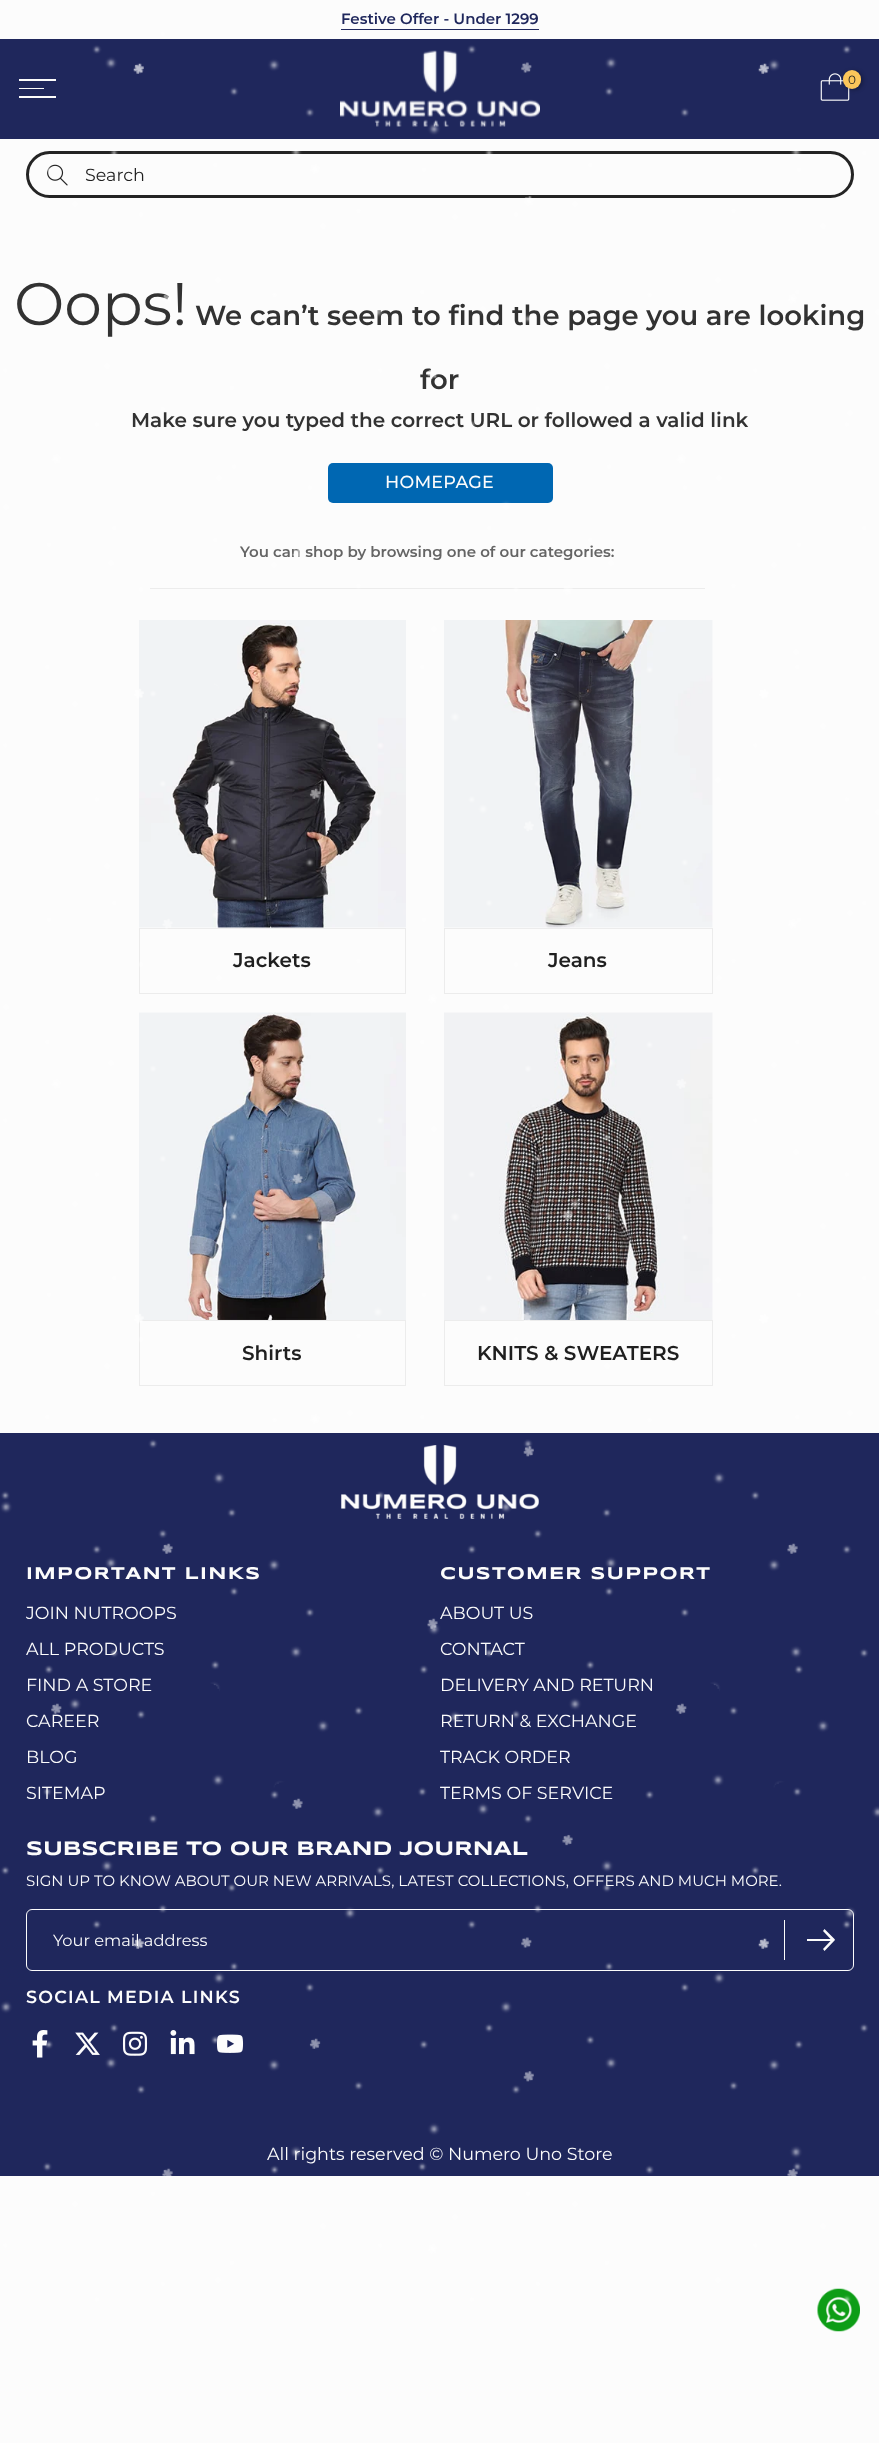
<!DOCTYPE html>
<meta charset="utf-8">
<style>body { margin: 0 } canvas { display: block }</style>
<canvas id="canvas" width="879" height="2443"></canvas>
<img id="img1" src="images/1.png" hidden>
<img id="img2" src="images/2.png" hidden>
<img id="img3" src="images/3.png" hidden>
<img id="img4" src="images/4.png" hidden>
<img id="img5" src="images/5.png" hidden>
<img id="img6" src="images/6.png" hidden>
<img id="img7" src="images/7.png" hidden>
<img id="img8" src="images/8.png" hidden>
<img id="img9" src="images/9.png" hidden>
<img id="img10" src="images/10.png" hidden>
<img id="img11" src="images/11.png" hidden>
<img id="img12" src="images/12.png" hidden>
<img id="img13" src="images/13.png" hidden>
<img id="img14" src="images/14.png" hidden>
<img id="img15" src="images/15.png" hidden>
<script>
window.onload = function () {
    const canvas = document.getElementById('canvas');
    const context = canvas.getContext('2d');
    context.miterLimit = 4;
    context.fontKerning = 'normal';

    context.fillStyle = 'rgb(252, 252, 252)';
    context.fillRect(0, 0, 879, 2443);
    context.fillStyle = 'rgb(31, 39, 92)';
    context.fillRect(341, 29, 198, 1);
    context.fillRect(0, 39, 879, 100);
    context.fillStyle = 'rgb(252, 252, 252)';
    context.fillRect(19, 79, 37, 2);
    context.fillRect(19, 88, 25, 1);
    context.fillRect(19, 96, 37, 2);
    context.drawImage(document.getElementById('img1'), 340, 50, 200, 77);
    context.drawImage(document.getElementById('img2'), 820, 73, 30, 28);
    context.fillStyle = 'rgba(0, 0, 0, 0.3)';
    context.filter = 'blur(2px)';
    context.beginPath();
    context.roundRect(844, 71, 19, 19, 9.5);
    context.fill();
    context.filter = 'none';
    context.fillStyle = 'rgb(252, 197, 90)';
    context.beginPath();
    context.roundRect(843, 70, 18, 19, 9);
    context.fill();
    context.beginPath();
    context.roundRect(27.5, 152.5, 825, 44, 22);
    context.strokeStyle = 'rgb(36, 36, 36)';
    context.lineWidth = 3;
    context.stroke();
    context.drawImage(document.getElementById('img3'), 47, 164, 21, 22);
    context.fillStyle = 'rgb(0, 103, 178)';
    context.beginPath();
    context.roundRect(328, 463, 225, 40, 5);
    context.fill();
    context.fillStyle = 'rgb(236, 236, 236)';
    context.fillRect(150, 588, 555, 1);
    context.drawImage(document.getElementById('img4'), 139, 620, 267, 308);
    context.strokeStyle = 'rgb(236, 236, 236)';
    context.lineWidth = 1;
    context.strokeRect(139.5, 928.5, 266, 65);
    context.drawImage(document.getElementById('img5'), 444, 620, 269, 308);
    context.strokeRect(444.5, 928.5, 268, 65);
    context.drawImage(document.getElementById('img6'), 139, 1012, 267, 308);
    context.strokeRect(139.5, 1320.5, 266, 65);
    context.drawImage(document.getElementById('img7'), 444, 1012, 269, 308);
    context.strokeRect(444.5, 1320.5, 268, 65);
    context.fillStyle = 'rgb(31, 39, 92)';
    context.fillRect(0, 1433, 879, 743);
    context.drawImage(document.getElementById('img8'), 341, 1445, 198, 74);
    context.beginPath();
    context.roundRect(26.5, 1909.5, 827, 61, 5.5);
    context.strokeStyle = 'rgb(252, 252, 252)';
    context.stroke();
    context.fillStyle = 'rgb(252, 252, 252)';
    context.fillRect(784, 1920, 1, 40);
    context.beginPath();
    context.moveTo(824.5, 1929);
    context.lineTo(823, 1931);
    context.lineTo(830.5, 1939);
    context.lineTo(807, 1939);
    context.lineTo(807, 1941);
    context.lineTo(830.5, 1941);
    context.lineTo(823, 1949);
    context.lineTo(824.5, 1951);
    context.lineTo(835, 1940);
    context.lineTo(834.5, 1939);
    context.closePath();
    context.fill();
    context.drawImage(document.getElementById('img9'), 32, 2030, 16, 28);
    context.drawImage(document.getElementById('img10'), 75, 2032, 25, 23);
    context.drawImage(document.getElementById('img11'), 122, 2031, 26, 25);
    context.drawImage(document.getElementById('img12'), 170, 2030, 25, 25);
    context.drawImage(document.getElementById('img13'), 216, 2034, 28, 19);
    context.drawImage(document.getElementById('img14'), 817, 2288, 43, 44);
    context.font = '600 15px Montserrat';
    context.fillStyle = 'rgb(31, 39, 92)';
    context.fillText('Festive Offer - Under 1299', 341, 24);
    context.font = '12px Montserrat';
    context.fillStyle = 'rgb(31, 31, 31)';
    context.fillText('0', 848, 84);
    context.font = '17.5px Montserrat';
    context.fillText('Search', 85, 181);
    context.font = '60px Montserrat';
    context.fillStyle = 'rgb(50, 50, 50)';
    context.fillText('Oops!', 14, 325);
    context.font = '600 27.5px Montserrat';
    context.fillText('We can’t seem to find the page you are looking', 195, 325);
    context.fillText('for', 420, 389);
    context.font = '600 20px Montserrat';
    context.fillText('Make sure you typed the correct URL or followed a valid link', 131, 427);
    context.letterSpacing = '0.25px';
    context.font = '500 17.5px Montserrat';
    context.fillStyle = 'rgb(252, 252, 252)';
    context.fillText('HOMEPAGE', 385, 488);
    context.letterSpacing = '0px';
    context.font = '600 15px Montserrat';
    context.fillStyle = 'rgb(101, 101, 101)';
    context.fillText('You can shop by browsing one of our categories:', 240, 557);
    context.font = '600 20px Montserrat';
    context.fillStyle = 'rgb(31, 31, 31)';
    context.fillText('Jackets', 233, 967);
    context.fillText('Jeans', 548, 967);
    context.fillText('Shirts', 242, 1360);
    context.fillText('KNITS & SWEATERS', 477, 1360);
    context.letterSpacing = '1.25px';
    context.font = 'bold 17.5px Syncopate';
    context.fillStyle = 'rgb(252, 252, 252)';
    context.fillText('IMPORTANT LINKS', 26, 1579);
    context.letterSpacing = '0px';
    context.font = '17.5px Montserrat';
    context.fillText('JOIN NUTROOPS', 26, 1619);
    context.fillText('ALL PRODUCTS', 26, 1655);
    context.fillText('FIND A STORE', 26, 1691);
    context.fillText('CAREER', 26, 1727);
    context.fillText('BLOG', 26, 1763);
    context.fillText('SITEMAP', 26, 1799);
    context.letterSpacing = '1.25px';
    context.font = 'bold 17.5px Syncopate';
    context.fillText('CUSTOMER SUPPORT', 440, 1579);
    context.letterSpacing = '0px';
    context.font = '17.5px Montserrat';
    context.fillText('ABOUT US', 440, 1619);
    context.fillText('CONTACT', 440, 1655);
    context.fillText('DELIVERY AND RETURN', 440, 1691);
    context.fillText('RETURN & EXCHANGE', 440, 1727);
    context.fillText('TRACK ORDER', 440, 1763);
    context.fillText('TERMS OF SERVICE', 440, 1799);
    context.font = 'bold 20px Syncopate';
    context.fillText('SUBSCRIBE TO OUR BRAND JOURNAL', 26, 1855);
    context.font = '15px Montserrat';
    context.fillText('SIGN UP TO KNOW ABOUT OUR NEW ARRIVALS, LATEST COLLECTIONS, OFFERS AND MUCH MORE.', 26, 1886);
    context.font = '16.25px Montserrat';
    context.fillText('Your email address', 53, 1946);
    context.letterSpacing = '1.25px';
    context.font = '600 17.5px Montserrat';
    context.fillText('SOCIAL MEDIA LINKS', 26, 2003);
    context.letterSpacing = '0px';
    context.font = '17.5px Montserrat';
    context.fillText('All rights reserved © Numero Uno Store', 267, 2160);
    context.drawImage(document.getElementById('img15'), 0, 29, 879, 2275);
};
</script>
